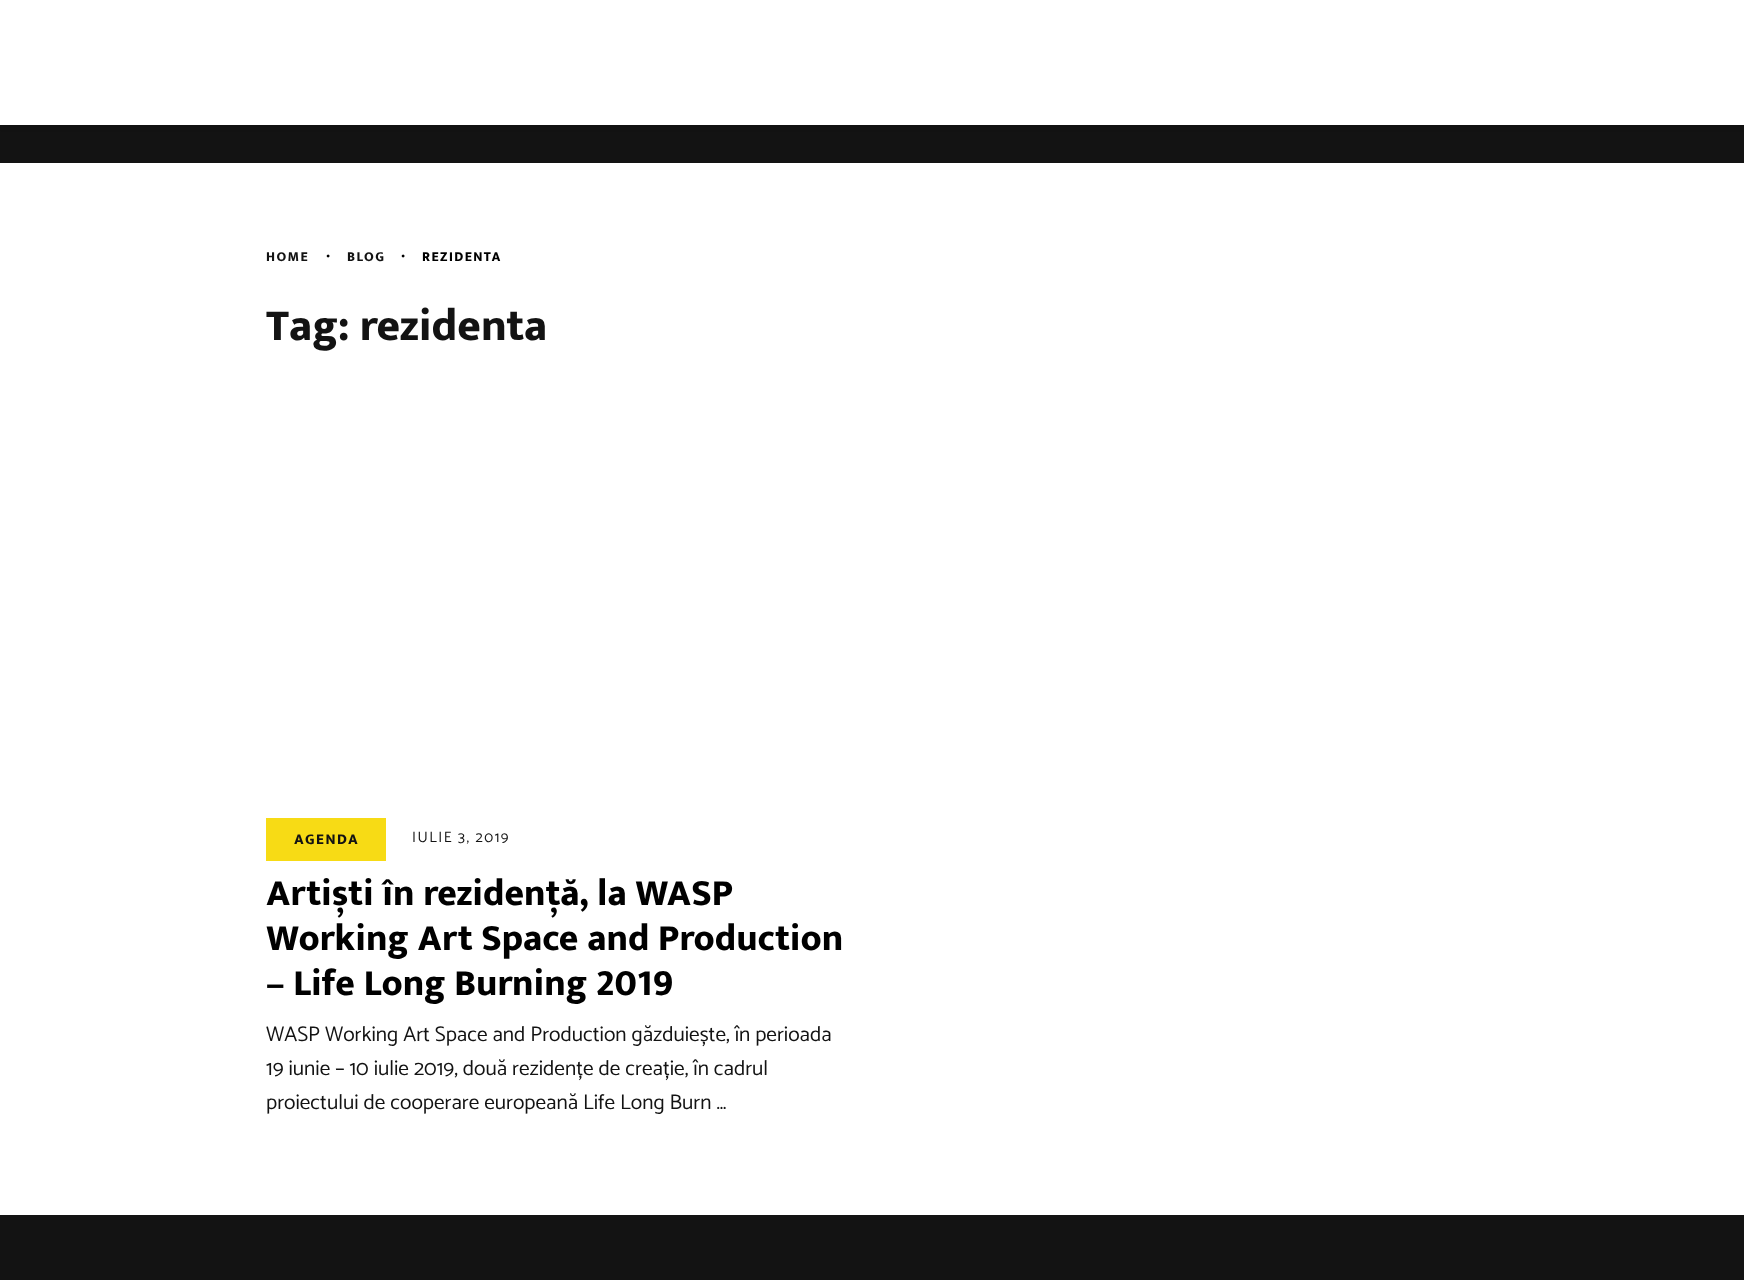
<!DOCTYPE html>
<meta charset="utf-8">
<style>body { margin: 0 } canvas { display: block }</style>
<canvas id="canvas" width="1744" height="1280"></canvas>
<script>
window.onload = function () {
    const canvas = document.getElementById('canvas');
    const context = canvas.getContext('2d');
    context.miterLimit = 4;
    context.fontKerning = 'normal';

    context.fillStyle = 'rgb(255, 255, 255)';
    context.fillRect(0, 0, 1744, 1280);
    context.fillStyle = 'rgb(19, 19, 19)';
    context.fillRect(0, 125, 1744, 38);
    context.fillStyle = 'rgba(0, 0, 0, 0.2)';
    context.filter = 'blur(3px)';
    context.beginPath();
    context.rect(0, 0, 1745, 125);
    context.fill();
    context.filter = 'none';
    context.fillStyle = 'rgb(255, 255, 255)';
    context.fillRect(0, 0, 1744, 125);
    context.fillStyle = 'rgb(247, 219, 21)';
    context.fillRect(266, 818, 120, 43);
    context.fillStyle = 'rgb(19, 19, 19)';
    context.fillRect(0, 1215, 1744, 65);
    context.letterSpacing = '1.4px';
    context.font = '800 13.75px Mukta';
    context.fillText('HOME', 266, 261);
    context.font = '12px Liberation Serif';
    context.fillStyle = 'rgb(0, 0, 0)';
    context.fillText('•', 326, 260);
    context.font = '800 13.75px Mukta';
    context.fillStyle = 'rgb(19, 19, 19)';
    context.fillText('BLOG', 347, 261);
    context.font = '12px Liberation Serif';
    context.fillStyle = 'rgb(0, 0, 0)';
    context.fillText('•', 401, 260);
    context.font = '800 13.75px Mukta';
    context.fillText('REZIDENTA', 422, 261);
    context.letterSpacing = '0px';
    context.font = '800 45px Mukta';
    context.fillStyle = 'rgb(19, 19, 19)';
    context.fillText('Tag: rezidenta', 266, 340);
    context.letterSpacing = '1.5px';
    context.font = '800 15px Mukta';
    context.fillText('AGENDA', 294, 844);
    context.font = '15px Catamaran';
    context.fillText('IULIE 3, 2019', 412, 842);
    context.letterSpacing = '0px';
    context.font = '800 37.5px Mukta';
    context.fillStyle = 'rgb(0, 0, 0)';
    context.fillText('Artiști în rezidență, la WASP', 266, 905);
    context.fillText('Working Art Space and Production', 266, 950);
    context.fillText('– Life Long Burning 2019', 266, 995);
    context.font = '21.25px Catamaran';
    context.fillStyle = 'rgb(19, 19, 19)';
    context.fillText('WASP Working Art Space and Production găzduiește, în perioada', 266, 1041);
    context.fillText('19 iunie – 10 iulie 2019, două rezidențe de creație, în cadrul', 266, 1075);
    context.fillText('proiectului de cooperare europeană Life Long Burn …', 266, 1109);
};
</script>
